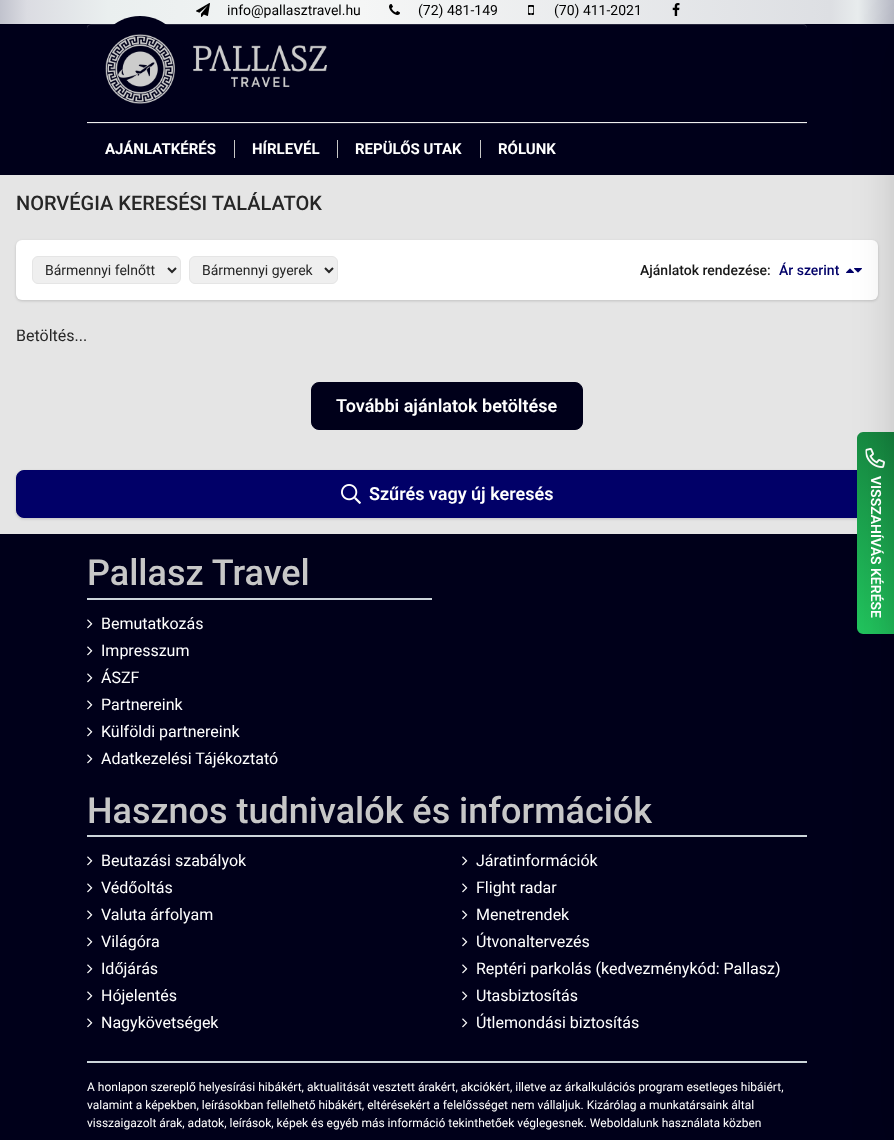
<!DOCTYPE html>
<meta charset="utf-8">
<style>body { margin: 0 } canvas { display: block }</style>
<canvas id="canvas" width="894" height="1140"></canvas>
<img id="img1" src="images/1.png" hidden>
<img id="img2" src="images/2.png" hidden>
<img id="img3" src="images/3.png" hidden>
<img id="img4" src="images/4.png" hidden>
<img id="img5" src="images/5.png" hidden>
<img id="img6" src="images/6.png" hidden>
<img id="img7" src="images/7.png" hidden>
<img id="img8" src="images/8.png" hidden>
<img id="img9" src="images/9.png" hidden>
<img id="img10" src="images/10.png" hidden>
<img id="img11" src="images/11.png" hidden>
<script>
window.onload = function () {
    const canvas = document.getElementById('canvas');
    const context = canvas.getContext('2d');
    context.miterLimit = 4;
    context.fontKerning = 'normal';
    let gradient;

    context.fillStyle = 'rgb(229, 229, 229)';
    context.fillRect(0, 0, 894, 1140);
    gradient = context.createLinearGradient(-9, 10, 894, 10);
    gradient.addColorStop(0, 'rgb(184, 186, 198)');
    gradient.addColorStop(0.04, 'rgb(219, 220, 226)');
    gradient.addColorStop(0.13, 'rgb(234, 239, 239)');
    gradient.addColorStop(0.41, 'rgb(245, 246, 246)');
    gradient.addColorStop(0.93, 'rgb(221, 223, 227)');
    gradient.addColorStop(0.96, 'rgb(232, 236, 237)');
    gradient.addColorStop(1, 'rgb(184, 186, 198)');
    context.fillStyle = gradient;
    context.fillRect(0, 0, 894, 24);
    context.drawImage(document.getElementById('img1'), 196, 3, 14, 14);
    context.drawImage(document.getElementById('img2'), 389, 4, 11, 11);
    context.drawImage(document.getElementById('img3'), 528, 5, 6, 10);
    context.drawImage(document.getElementById('img4'), 672, 3, 8, 13);
    context.fillStyle = 'rgb(0, 0, 26)';
    context.fillRect(0, 24, 894, 151);
    context.fillStyle = 'rgb(38, 38, 60)';
    context.beginPath();
    context.moveTo(91, 25);
    context.lineTo(803, 25);
    context.bezierCurveTo(805, 25, 807, 27, 807, 29);
    context.bezierCurveTo(807, 26, 806, 24, 803, 24);
    context.lineTo(91, 24);
    context.lineTo(88, 25);
    context.lineTo(87, 26);
    context.lineTo(87, 29);
    context.bezierCurveTo(87, 27, 89, 25, 91, 25);
    context.closePath();
    context.fill();
    context.fillStyle = 'rgb(0, 0, 26)';
    context.beginPath();
    context.ellipse(140, 69, 48, 53, 0, 0, 2 * Math.PI);
    context.fill();
    context.drawImage(document.getElementById('img5'), 105, 34, 70, 70);
    context.drawImage(document.getElementById('img6'), 193, 45, 134, 42);
    context.fillStyle = 'rgb(26, 26, 49)';
    context.fillRect(87, 123, 720, 1);
    context.fillStyle = 'rgb(238, 238, 238)';
    context.fillRect(87, 122, 720, 1);
    context.fillStyle = 'rgb(199, 199, 199)';
    context.fillRect(234, 140, 1, 18);
    context.fillRect(337, 140, 1, 18);
    context.fillRect(480, 140, 1, 18);
    context.fillStyle = 'rgba(0, 0, 0, 0.06)';
    context.filter = 'blur(1px)';
    context.beginPath();
    context.roundRect(16, 241, 862, 60, 6);
    context.fill();
    context.filter = 'none';
    context.fillStyle = 'rgba(0, 0, 0, 0.1)';
    context.filter = 'blur(1.5px)';
    context.beginPath();
    context.roundRect(16, 241, 862, 60, 6);
    context.fill();
    context.filter = 'none';
    context.fillStyle = 'rgb(255, 255, 255)';
    context.beginPath();
    context.roundRect(16, 240, 862, 60, 6);
    context.fill();
    context.fillStyle = 'rgb(239, 239, 239)';
    context.beginPath();
    context.roundRect(32.5, 256.5, 148, 27, 5.5);
    context.fill();
    context.strokeStyle = 'rgb(229, 229, 229)';
    context.stroke();
    context.beginPath();
    context.moveTo(168, 268);
    context.lineTo(172, 272);
    context.lineTo(176, 268);
    context.strokeStyle = 'rgb(38, 38, 38)';
    context.lineWidth = 2;
    context.stroke();
    context.beginPath();
    context.roundRect(189.5, 256.5, 148, 27, 5.5);
    context.fill();
    context.strokeStyle = 'rgb(229, 229, 229)';
    context.lineWidth = 1;
    context.stroke();
    context.beginPath();
    context.moveTo(325, 268);
    context.lineTo(329, 272);
    context.lineTo(333, 268);
    context.strokeStyle = 'rgb(38, 38, 38)';
    context.lineWidth = 2;
    context.stroke();
    context.drawImage(document.getElementById('img7'), 846, 268, 8, 5);
    context.drawImage(document.getElementById('img8'), 854, 268, 8, 5);
    context.fillStyle = 'rgb(0, 0, 26)';
    context.beginPath();
    context.roundRect(311.5, 382.5, 271, 47, 7.5);
    context.fill();
    context.strokeStyle = 'rgb(0, 0, 26)';
    context.lineWidth = 1;
    context.stroke();
    context.fillStyle = 'rgba(0, 0, 0, 0.06)';
    context.filter = 'blur(1px)';
    context.beginPath();
    context.roundRect(16, 471, 862, 48, 8);
    context.fill();
    context.filter = 'none';
    context.fillStyle = 'rgba(0, 0, 0, 0.1)';
    context.filter = 'blur(1.5px)';
    context.beginPath();
    context.roundRect(16, 471, 862, 48, 8);
    context.fill();
    context.filter = 'none';
    context.fillStyle = 'rgb(1, 0, 104)';
    context.beginPath();
    context.roundRect(16.5, 470.5, 861, 47, 7.5);
    context.fill();
    context.strokeStyle = 'rgb(1, 0, 104)';
    context.stroke();
    context.drawImage(document.getElementById('img9'), 341, 484, 20, 20);
    context.fillStyle = 'rgb(0, 0, 26)';
    context.fillRect(0, 534, 894, 606);
    gradient = context.createLinearGradient(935, 473, 816, 593);
    gradient.addColorStop(0, 'rgb(21, 128, 61)');
    gradient.addColorStop(1, 'rgb(34, 197, 94)');
    context.fillStyle = gradient;
    context.beginPath();
    context.moveTo(894, 432);
    context.lineTo(894, 634);
    context.lineTo(863, 634);
    context.bezierCurveTo(860, 634, 857, 631, 857, 628);
    context.lineTo(857, 438);
    context.bezierCurveTo(857, 435, 860, 432, 863, 432);
    context.closePath();
    context.fill();
    context.drawImage(document.getElementById('img10'), 865, 448, 20, 20);
    context.fillStyle = 'rgba(0, 0, 0, 0.25)';
    context.filter = 'blur(25px)';
    context.beginPath();
    context.rect(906, 37, 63, 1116);
    context.fill();
    context.filter = 'none';
    context.fillStyle = 'rgb(204, 213, 218)';
    context.fillRect(87, 598, 345, 2);
    context.drawImage(document.getElementById('img11'), 87, 619, 6, 10);
    context.drawImage(document.getElementById('img11'), 87, 646, 6, 10);
    context.drawImage(document.getElementById('img11'), 87, 673, 6, 10);
    context.drawImage(document.getElementById('img11'), 87, 700, 6, 10);
    context.drawImage(document.getElementById('img11'), 87, 727, 6, 10);
    context.drawImage(document.getElementById('img11'), 87, 754, 6, 10);
    context.fillRect(87, 835, 720, 2);
    context.drawImage(document.getElementById('img11'), 87, 856, 6, 10);
    context.drawImage(document.getElementById('img11'), 87, 883, 6, 10);
    context.drawImage(document.getElementById('img11'), 87, 910, 6, 10);
    context.drawImage(document.getElementById('img11'), 87, 937, 6, 10);
    context.drawImage(document.getElementById('img11'), 87, 964, 6, 10);
    context.drawImage(document.getElementById('img11'), 87, 991, 6, 10);
    context.drawImage(document.getElementById('img11'), 87, 1018, 6, 10);
    context.drawImage(document.getElementById('img11'), 462, 856, 6, 10);
    context.drawImage(document.getElementById('img11'), 462, 883, 6, 10);
    context.drawImage(document.getElementById('img11'), 462, 910, 6, 10);
    context.drawImage(document.getElementById('img11'), 462, 937, 6, 10);
    context.drawImage(document.getElementById('img11'), 462, 964, 6, 10);
    context.drawImage(document.getElementById('img11'), 462, 991, 6, 10);
    context.drawImage(document.getElementById('img11'), 462, 1018, 6, 10);
    context.fillRect(87, 1061, 720, 2);
    context.font = '14px Roboto';
    context.fillStyle = 'rgb(0, 0, 0)';
    context.fillText('info@pallasztravel.hu', 227, 15);
    context.fillText('(72) 481-149', 418, 15);
    context.fillText('(70) 411-2021', 554, 15);
    context.font = 'bold 15px Roboto';
    context.fillStyle = 'rgb(255, 255, 255)';
    context.fillText('AJÁNLATKÉRÉS', 105, 154);
    context.fillText('HÍRLEVÉL', 252, 154);
    context.fillText('REPÜLŐS UTAK', 355, 154);
    context.fillText('RÓLUNK', 498, 154);
    context.font = '500 20px Roboto';
    context.fillStyle = 'rgb(38, 38, 38)';
    context.fillText('NORVÉGIA KERESÉSI TALÁLATOK', 16, 210);
    context.font = '14px Roboto';
    context.fillText('Bármennyi felnőtt', 45, 275);
    context.fillText('Bármennyi gyerek', 202, 275);
    context.font = '500 14px Roboto';
    context.fillStyle = 'rgb(23, 23, 23)';
    context.fillText('Ajánlatok rendezése:', 640, 275);
    context.fillStyle = 'rgb(1, 0, 104)';
    context.fillText('Ár szerint', 779, 275);
    context.font = '16px Roboto';
    context.fillStyle = 'rgb(38, 38, 38)';
    context.fillText('Betöltés...', 16, 341);
    context.font = '600 18px Roboto';
    context.fillStyle = 'rgb(255, 255, 255)';
    context.fillText('További ajánlatok betöltése', 336, 412);
    context.fillText('Szűrés vagy új keresés', 369, 500);
    context.font = '600 14px Roboto';
    context.save();
    context.translate(871, 476);
    context.rotate(90 * Math.PI / 180);
    context.fillText('VISSZAHÍVÁS KÉRÉSE', 0, 0);
    context.restore();
    context.font = '500 36px Roboto';
    context.fillStyle = 'rgb(199, 199, 199)';
    context.fillText('Pallasz Travel', 87, 585);
    context.font = '16px Roboto';
    context.fillStyle = 'rgb(255, 255, 255)';
    context.fillText('Bemutatkozás', 101, 629);
    context.fillText('Impresszum', 101, 656);
    context.fillText('ÁSZF', 101, 683);
    context.fillText('Partnereink', 101, 710);
    context.fillText('Külföldi partnereink', 101, 737);
    context.fillText('Adatkezelési Tájékoztató', 101, 764);
    context.font = '500 36px Roboto';
    context.fillStyle = 'rgb(199, 199, 199)';
    context.fillText('Hasznos tudnivalók és információk', 87, 823);
    context.font = '16px Roboto';
    context.fillStyle = 'rgb(255, 255, 255)';
    context.fillText('Beutazási szabályok', 101, 866);
    context.fillText('Védőoltás', 101, 893);
    context.fillText('Valuta árfolyam', 101, 920);
    context.fillText('Világóra', 101, 947);
    context.fillText('Időjárás', 101, 974);
    context.fillText('Hójelentés', 101, 1001);
    context.fillText('Nagykövetségek', 101, 1028);
    context.fillText('Járatinformációk', 476, 866);
    context.fillText('Flight radar', 476, 893);
    context.fillText('Menetrendek', 476, 920);
    context.fillText('Útvonaltervezés', 476, 947);
    context.fillText('Reptéri parkolás (kedvezménykód: Pallasz)', 476, 974);
    context.fillText('Utasbiztosítás', 476, 1001);
    context.fillText('Útlemondási biztosítás', 476, 1028);
    context.font = '12px Roboto';
    context.fillText('A honlapon szereplő helyesírási hibákért, aktualitását vesztett árakért, akciókért, illetve az árkalkulációs program esetleges hibáiért,', 87, 1091);
    context.fillText('valamint a képekben, leírásokban fellelhető hibákért, eltérésekért a felelősséget nem vállaljuk. Kizárólag a munkatársaink által', 87, 1109);
    context.fillText('visszaigazolt árak, adatok, leírások, képek és egyéb más információ tekinthetőek véglegesnek. Weboldalunk használata közben', 87, 1127);
};
</script>
